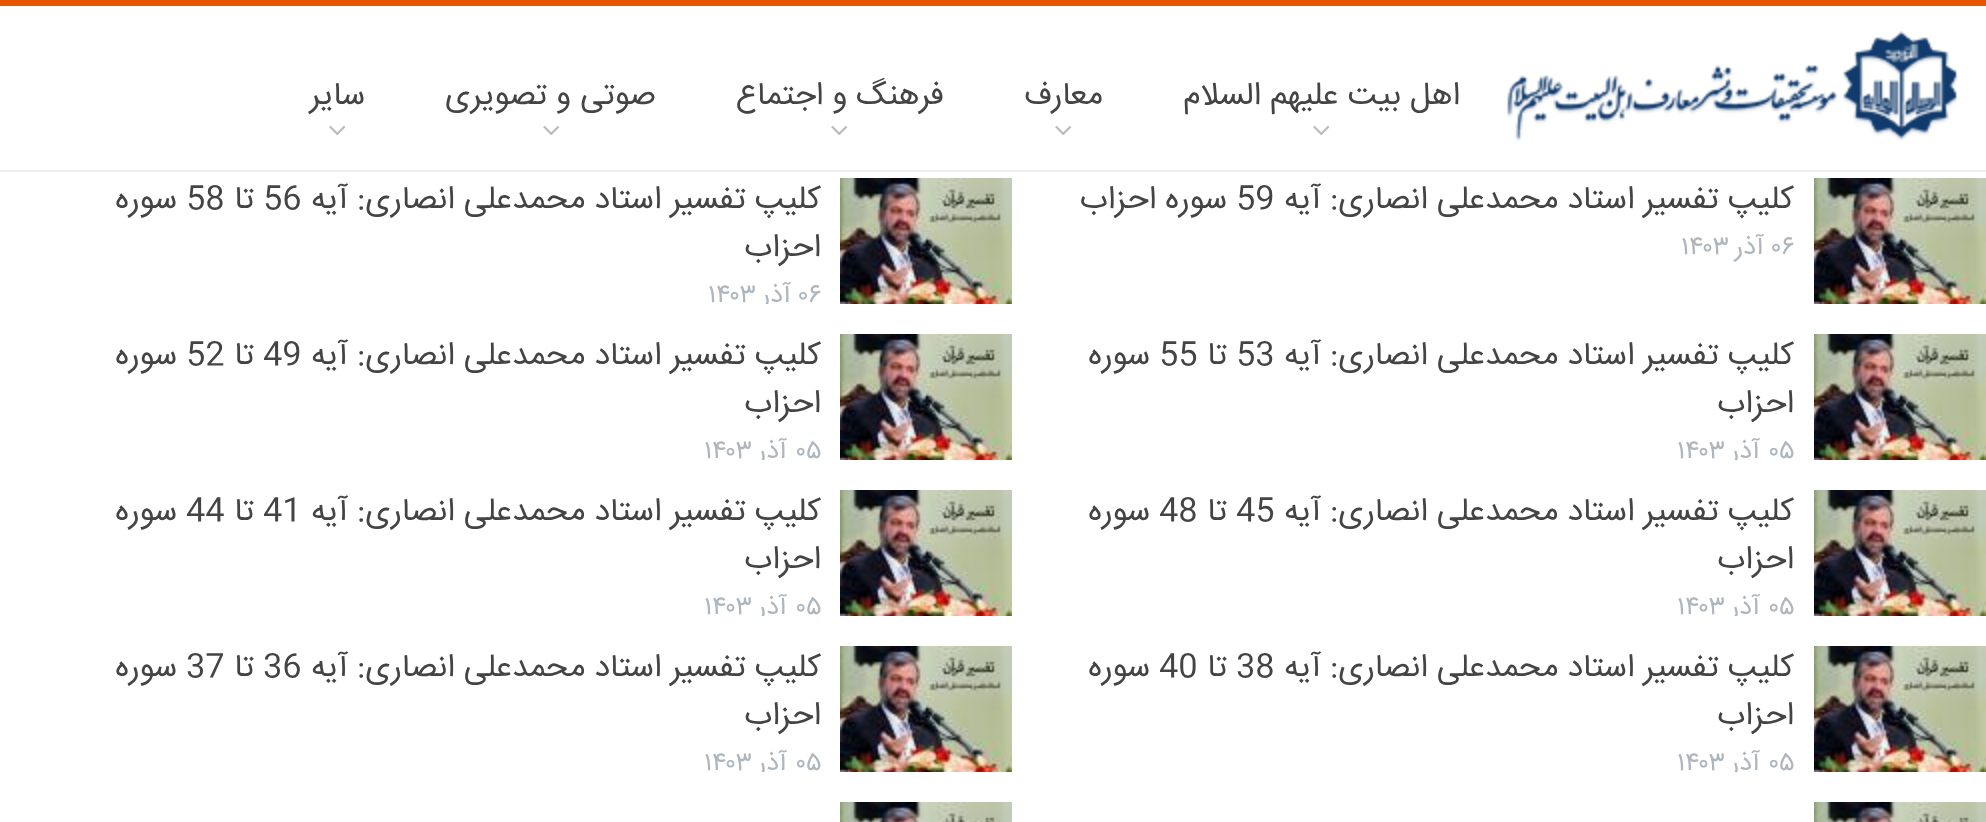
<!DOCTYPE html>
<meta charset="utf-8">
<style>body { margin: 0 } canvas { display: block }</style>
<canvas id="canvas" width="1986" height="822"></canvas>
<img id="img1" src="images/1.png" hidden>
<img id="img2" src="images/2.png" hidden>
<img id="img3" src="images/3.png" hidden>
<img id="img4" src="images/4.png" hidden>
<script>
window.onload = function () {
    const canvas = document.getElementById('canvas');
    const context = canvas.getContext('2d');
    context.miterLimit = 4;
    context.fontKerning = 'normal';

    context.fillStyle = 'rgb(255, 255, 255)';
    context.fillRect(0, 0, 1986, 822);
    context.fillStyle = 'rgb(232, 85, 0)';
    context.fillRect(0, 0, 1986, 6);
    context.fillStyle = 'rgb(238, 238, 238)';
    context.fillRect(0, 170, 1986, 2);
    context.drawImage(document.getElementById('img1'), 1506, 31, 452, 110);
    context.drawImage(document.getElementById('img2'), 1313, 125, 17, 10);
    context.drawImage(document.getElementById('img2'), 1055, 125, 17, 10);
    context.drawImage(document.getElementById('img2'), 831, 125, 17, 10);
    context.drawImage(document.getElementById('img2'), 543, 125, 17, 10);
    context.drawImage(document.getElementById('img2'), 329, 125, 17, 10);
    context.drawImage(document.getElementById('img3'), 1814, 178, 172, 126);
    context.drawImage(document.getElementById('img3'), 840, 178, 172, 126);
    context.drawImage(document.getElementById('img3'), 1814, 334, 172, 126);
    context.drawImage(document.getElementById('img3'), 840, 334, 172, 126);
    context.drawImage(document.getElementById('img3'), 1814, 490, 172, 126);
    context.drawImage(document.getElementById('img3'), 840, 490, 172, 126);
    context.drawImage(document.getElementById('img3'), 1814, 646, 172, 126);
    context.drawImage(document.getElementById('img3'), 840, 646, 172, 126);
    context.drawImage(document.getElementById('img4'), 1814, 802, 172, 20);
    context.drawImage(document.getElementById('img4'), 840, 802, 172, 20);
    context.direction = 'rtl';
    context.font = '32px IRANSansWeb';
    context.fillStyle = 'rgb(68, 68, 68)';
    context.fillText('اهل بیت علیهم السلام', 1460, 104);
    context.fillText('معارف', 1103, 104);
    context.fillText('فرهنگ و اجتماع', 944, 104);
    context.fillText('صوتی و تصویری', 656, 104);
    context.fillText('سایر', 365, 104);
    context.fillText('کلیپ تفسیر استاد محمدعلی انصاری: آیه', 1794, 208);
    context.direction = 'ltr';
    context.fillText('59', 1236, 208);
    context.direction = 'rtl';
    context.fillText('سوره احزاب', 1227, 208);
    context.direction = 'ltr';
    context.font = '26px IRANSansWeb';
    context.fillStyle = 'rgb(173, 181, 189)';
    context.fillText('۰۶', 1772, 254);
    context.direction = 'rtl';
    context.fillText('آذر', 1764, 254);
    context.direction = 'ltr';
    context.fillText('۱۴۰۳', 1681, 254);
    context.direction = 'rtl';
    context.font = '32px IRANSansWeb';
    context.fillStyle = 'rgb(68, 68, 68)';
    context.fillText('کلیپ تفسیر استاد محمدعلی انصاری: آیه', 821, 208);
    context.direction = 'ltr';
    context.fillText('56', 263, 208);
    context.direction = 'rtl';
    context.fillText('تا', 254, 208);
    context.direction = 'ltr';
    context.fillText('58', 186, 208);
    context.direction = 'rtl';
    context.fillText('سوره', 177, 208);
    context.fillText('احزاب', 821, 256);
    context.direction = 'ltr';
    context.font = '26px IRANSansWeb';
    context.fillStyle = 'rgb(173, 181, 189)';
    context.fillText('۰۶', 799, 302);
    context.save();
    context.beginPath();
    context.rect(40, 178, 972, 126);
    context.clip();
    context.direction = 'rtl';
    context.fillText('آذر', 791, 302);
    context.restore();
    context.fillText('۱۴۰۳', 708, 302);
    context.direction = 'rtl';
    context.font = '32px IRANSansWeb';
    context.fillStyle = 'rgb(68, 68, 68)';
    context.fillText('کلیپ تفسیر استاد محمدعلی انصاری: آیه', 1794, 364);
    context.direction = 'ltr';
    context.fillText('53', 1236, 364);
    context.direction = 'rtl';
    context.fillText('تا', 1227, 364);
    context.direction = 'ltr';
    context.fillText('55', 1159, 364);
    context.direction = 'rtl';
    context.fillText('سوره', 1150, 364);
    context.fillText('احزاب', 1794, 412);
    context.direction = 'ltr';
    context.font = '26px IRANSansWeb';
    context.fillStyle = 'rgb(173, 181, 189)';
    context.fillText('۰۵', 1768, 458);
    context.save();
    context.beginPath();
    context.rect(1012, 334, 974, 126);
    context.clip();
    context.direction = 'rtl';
    context.fillText('آذر', 1760, 458);
    context.restore();
    context.fillText('۱۴۰۳', 1677, 458);
    context.direction = 'rtl';
    context.font = '32px IRANSansWeb';
    context.fillStyle = 'rgb(68, 68, 68)';
    context.fillText('کلیپ تفسیر استاد محمدعلی انصاری: آیه', 821, 364);
    context.direction = 'ltr';
    context.fillText('49', 263, 364);
    context.direction = 'rtl';
    context.fillText('تا', 254, 364);
    context.direction = 'ltr';
    context.fillText('52', 186, 364);
    context.direction = 'rtl';
    context.fillText('سوره', 177, 364);
    context.fillText('احزاب', 821, 412);
    context.direction = 'ltr';
    context.font = '26px IRANSansWeb';
    context.fillStyle = 'rgb(173, 181, 189)';
    context.fillText('۰۵', 795, 458);
    context.save();
    context.beginPath();
    context.rect(40, 334, 972, 126);
    context.clip();
    context.direction = 'rtl';
    context.fillText('آذر', 787, 458);
    context.restore();
    context.fillText('۱۴۰۳', 704, 458);
    context.direction = 'rtl';
    context.font = '32px IRANSansWeb';
    context.fillStyle = 'rgb(68, 68, 68)';
    context.fillText('کلیپ تفسیر استاد محمدعلی انصاری: آیه', 1794, 520);
    context.direction = 'ltr';
    context.fillText('45', 1236, 520);
    context.direction = 'rtl';
    context.fillText('تا', 1227, 520);
    context.direction = 'ltr';
    context.fillText('48', 1159, 520);
    context.direction = 'rtl';
    context.fillText('سوره', 1150, 520);
    context.fillText('احزاب', 1794, 568);
    context.direction = 'ltr';
    context.font = '26px IRANSansWeb';
    context.fillStyle = 'rgb(173, 181, 189)';
    context.fillText('۰۵', 1768, 614);
    context.save();
    context.beginPath();
    context.rect(1012, 490, 974, 126);
    context.clip();
    context.direction = 'rtl';
    context.fillText('آذر', 1760, 614);
    context.restore();
    context.fillText('۱۴۰۳', 1677, 614);
    context.direction = 'rtl';
    context.font = '32px IRANSansWeb';
    context.fillStyle = 'rgb(68, 68, 68)';
    context.fillText('کلیپ تفسیر استاد محمدعلی انصاری: آیه', 821, 520);
    context.direction = 'ltr';
    context.fillText('41', 263, 520);
    context.direction = 'rtl';
    context.fillText('تا', 254, 520);
    context.direction = 'ltr';
    context.fillText('44', 186, 520);
    context.direction = 'rtl';
    context.fillText('سوره', 177, 520);
    context.fillText('احزاب', 821, 568);
    context.direction = 'ltr';
    context.font = '26px IRANSansWeb';
    context.fillStyle = 'rgb(173, 181, 189)';
    context.fillText('۰۵', 795, 614);
    context.save();
    context.beginPath();
    context.rect(40, 490, 972, 126);
    context.clip();
    context.direction = 'rtl';
    context.fillText('آذر', 787, 614);
    context.restore();
    context.fillText('۱۴۰۳', 704, 614);
    context.direction = 'rtl';
    context.font = '32px IRANSansWeb';
    context.fillStyle = 'rgb(68, 68, 68)';
    context.fillText('کلیپ تفسیر استاد محمدعلی انصاری: آیه', 1794, 676);
    context.direction = 'ltr';
    context.fillText('38', 1236, 676);
    context.direction = 'rtl';
    context.fillText('تا', 1227, 676);
    context.direction = 'ltr';
    context.fillText('40', 1159, 676);
    context.direction = 'rtl';
    context.fillText('سوره', 1150, 676);
    context.fillText('احزاب', 1794, 724);
    context.direction = 'ltr';
    context.font = '26px IRANSansWeb';
    context.fillStyle = 'rgb(173, 181, 189)';
    context.fillText('۰۵', 1768, 770);
    context.save();
    context.beginPath();
    context.rect(1012, 646, 974, 126);
    context.clip();
    context.direction = 'rtl';
    context.fillText('آذر', 1760, 770);
    context.restore();
    context.fillText('۱۴۰۳', 1677, 770);
    context.direction = 'rtl';
    context.font = '32px IRANSansWeb';
    context.fillStyle = 'rgb(68, 68, 68)';
    context.fillText('کلیپ تفسیر استاد محمدعلی انصاری: آیه', 821, 676);
    context.direction = 'ltr';
    context.fillText('36', 263, 676);
    context.direction = 'rtl';
    context.fillText('تا', 254, 676);
    context.direction = 'ltr';
    context.fillText('37', 186, 676);
    context.direction = 'rtl';
    context.fillText('سوره', 177, 676);
    context.fillText('احزاب', 821, 724);
    context.direction = 'ltr';
    context.font = '26px IRANSansWeb';
    context.fillStyle = 'rgb(173, 181, 189)';
    context.fillText('۰۵', 795, 770);
    context.save();
    context.beginPath();
    context.rect(40, 646, 972, 126);
    context.clip();
    context.direction = 'rtl';
    context.fillText('آذر', 787, 770);
    context.restore();
    context.fillText('۱۴۰۳', 704, 770);
};
</script>
